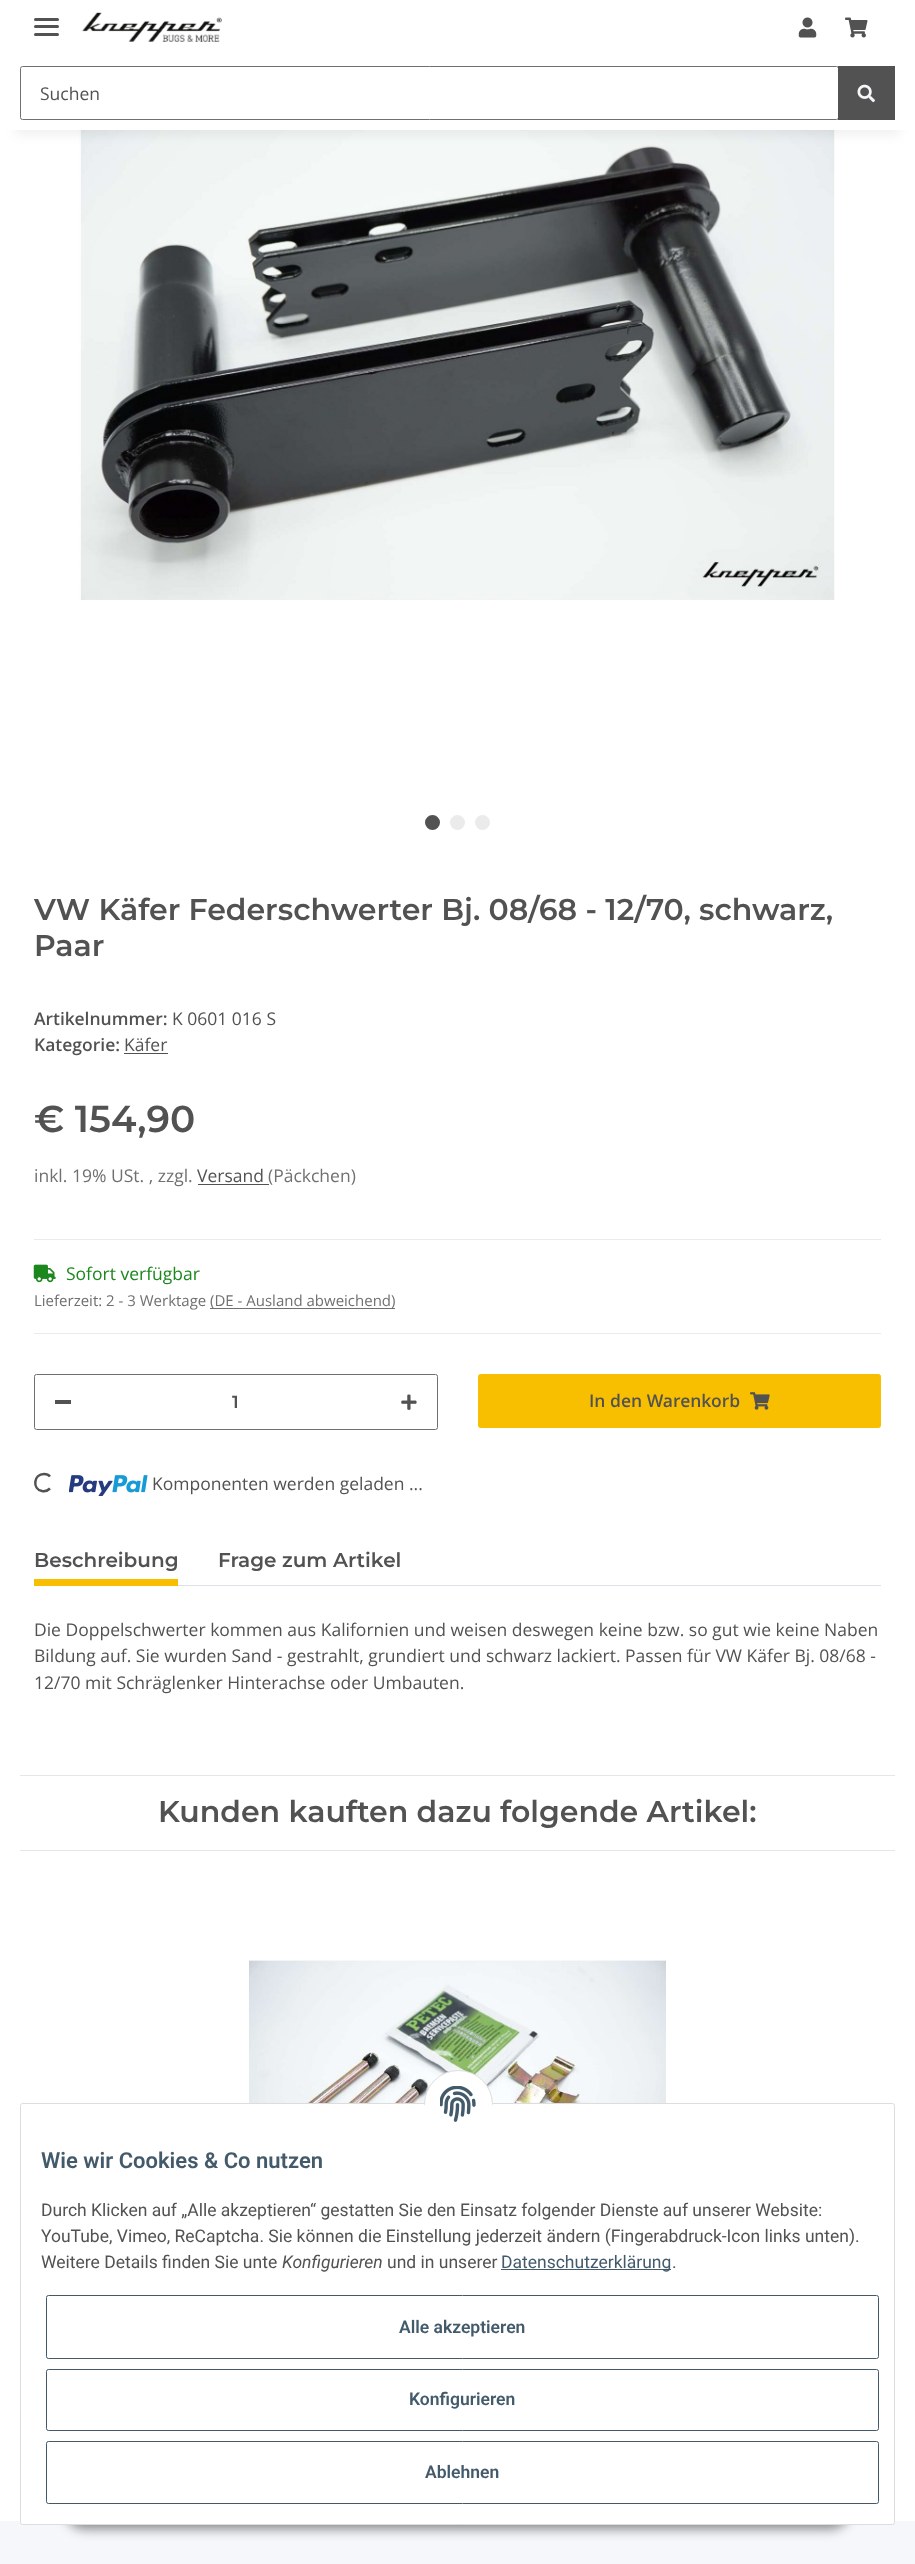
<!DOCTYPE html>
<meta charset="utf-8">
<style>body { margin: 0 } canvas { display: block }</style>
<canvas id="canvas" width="915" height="2564"></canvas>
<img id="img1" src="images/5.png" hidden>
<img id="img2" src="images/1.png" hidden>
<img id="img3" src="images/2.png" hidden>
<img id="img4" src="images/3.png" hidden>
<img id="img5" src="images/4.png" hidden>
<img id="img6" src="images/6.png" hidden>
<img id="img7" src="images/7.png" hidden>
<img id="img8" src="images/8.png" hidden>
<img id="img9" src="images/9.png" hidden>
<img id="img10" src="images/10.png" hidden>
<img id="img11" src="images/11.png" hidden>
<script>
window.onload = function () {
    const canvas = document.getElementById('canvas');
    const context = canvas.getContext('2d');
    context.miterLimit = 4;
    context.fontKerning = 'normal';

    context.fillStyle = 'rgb(245, 247, 250)';
    context.fillRect(0, 0, 915, 2564);
    context.fillStyle = 'rgb(255, 255, 255)';
    context.fillRect(0, 130, 915, 2391);
    context.drawImage(document.getElementById('img1'), 79, 130, 756, 470);
    context.fillStyle = 'rgba(0, 0, 0, 0.06)';
    context.filter = 'blur(5.5px)';
    context.beginPath();
    context.rect(15, 35, 885, 100);
    context.fill();
    context.filter = 'none';
    context.fillStyle = 'rgb(255, 255, 255)';
    context.fillRect(0, 0, 915, 130);
    context.fillStyle = 'rgb(82, 82, 82)';
    context.beginPath();
    context.roundRect(34, 25, 25, 3, 1.5);
    context.fill();
    context.beginPath();
    context.roundRect(34, 18, 25, 3, 1.5);
    context.fill();
    context.beginPath();
    context.roundRect(34, 33, 25, 3, 1.5);
    context.fill();
    context.drawImage(document.getElementById('img2'), 82, 12, 140, 30);
    context.drawImage(document.getElementById('img3'), 798, 17, 19, 21);
    context.drawImage(document.getElementById('img4'), 845, 17, 23, 21);
    context.beginPath();
    context.roundRect(20.5, 66.5, 818, 53, 2);
    context.strokeStyle = 'rgb(112, 112, 112)';
    context.stroke();
    context.fillRect(838, 66, 57, 54);
    context.drawImage(document.getElementById('img5'), 857, 84, 18, 19);
    context.beginPath();
    context.arc(432.5, 822.5, 6, 0, 2 * Math.PI);
    context.fill();
    context.strokeStyle = 'rgb(82, 82, 82)';
    context.lineWidth = 3;
    context.stroke();
    context.fillStyle = 'rgb(235, 235, 235)';
    context.beginPath();
    context.arc(457.5, 822.5, 6, 0, 2 * Math.PI);
    context.fill();
    context.strokeStyle = 'rgb(235, 235, 235)';
    context.stroke();
    context.beginPath();
    context.arc(482.5, 822.5, 6, 0, 2 * Math.PI);
    context.fill();
    context.stroke();
    context.fillStyle = 'rgb(82, 82, 82)';
    context.fillRect(124, 1053, 44, 1);
    context.fillRect(198, 1184, 71, 1);
    context.fillStyle = 'rgb(235, 235, 235)';
    context.fillRect(34, 1239, 847, 1);
    context.fillRect(34, 1333, 847, 1);
    context.drawImage(document.getElementById('img6'), 33, 1264, 23, 19);
    context.fillStyle = 'rgb(112, 112, 112)';
    context.fillRect(210, 1308, 185, 1);
    context.beginPath();
    context.roundRect(34.5, 1374.5, 403, 55, 2);
    context.strokeStyle = 'rgb(112, 112, 112)';
    context.lineWidth = 1;
    context.stroke();
    context.fillStyle = 'rgb(82, 82, 82)';
    context.fillRect(55, 1400, 16, 4);
    context.drawImage(document.getElementById('img7'), 401, 1394, 16, 16);
    context.fillStyle = 'rgb(248, 191, 0)';
    context.beginPath();
    context.roundRect(478.5, 1374.5, 402, 53, 2);
    context.fill();
    context.strokeStyle = 'rgb(248, 191, 0)';
    context.stroke();
    context.drawImage(document.getElementById('img8'), 750, 1392, 20, 18);
    context.beginPath();
    context.moveTo(50, 1488.5);
    context.bezierCurveTo(48, 1490.5, 45, 1491.5, 42, 1491);
    context.bezierCurveTo(32, 1489, 33.5, 1474, 44, 1474);
    context.bezierCurveTo(46, 1474, 48.5, 1474.5, 50, 1476.5);
    context.strokeStyle = 'rgb(82, 82, 82)';
    context.lineWidth = 2.5;
    context.stroke();
    context.drawImage(document.getElementById('img9'), 69, 1475, 79, 21);
    context.fillStyle = 'rgb(222, 226, 230)';
    context.fillRect(178, 1585, 703, 1);
    context.fillStyle = 'rgb(248, 191, 0)';
    context.fillRect(34, 1579, 144, 7);
    context.fillStyle = 'rgb(230, 230, 230)';
    context.fillRect(20, 1775, 875, 1);
    context.fillRect(20, 1850, 875, 1);
    context.drawImage(document.getElementById('img10'), 249, 1960, 417, 143);
    context.fillStyle = 'rgba(0, 0, 0, 0.45)';
    context.filter = 'blur(6px)';
    context.beginPath();
    context.roundRect(65, 2489, 785, 40, 20);
    context.fill();
    context.filter = 'none';
    context.fillStyle = 'rgb(255, 255, 255)';
    context.beginPath();
    context.roundRect(20.5, 2103.5, 874, 421, 2);
    context.fill();
    context.strokeStyle = 'rgb(221, 221, 221)';
    context.lineWidth = 1;
    context.stroke();
    context.beginPath();
    context.arc(458.5, 2104.5, 34, 0, 2 * Math.PI);
    context.fill();
    context.stroke();
    context.fillRect(424, 2105, 69, 34);
    context.drawImage(document.getElementById('img11'), 440, 2086, 36, 36);
    context.fillStyle = 'rgb(67, 90, 107)';
    context.fillRect(501, 2269, 170, 1);
    context.beginPath();
    context.roundRect(46.5, 2295.5, 832, 63, 2);
    context.strokeStyle = 'rgb(67, 90, 107)';
    context.stroke();
    context.beginPath();
    context.roundRect(46.5, 2369.5, 832, 61, 2);
    context.stroke();
    context.beginPath();
    context.roundRect(46.5, 2441.5, 832, 62, 2);
    context.stroke();
    context.font = '17.5px Open Sans';
    context.fillStyle = 'rgb(82, 82, 82)';
    context.fillText('Suchen', 40, 100);
    context.font = '600 30px Montserrat';
    context.fillText('VW Käfer Federschwerter Bj. 08/68 - 12/70, schwarz,', 34, 920);
    context.fillText('Paar', 34, 956);
    context.font = '600 17.5px Open Sans';
    context.fillText('Artikelnummer:', 34, 1025);
    context.font = '17.5px Open Sans';
    context.fillText('K 0601 016 S', 172, 1025);
    context.font = '600 17.5px Open Sans';
    context.fillText('Kategorie:', 34, 1051);
    context.font = '17.5px Open Sans';
    context.fillText('Käfer', 124, 1051);
    context.font = '600 37.5px Montserrat';
    context.fillText('€ 154,90', 34, 1132);
    context.font = '17.5px Open Sans';
    context.fillStyle = 'rgb(112, 112, 112)';
    context.fillText('inkl. 19% USt. , zzgl.', 34, 1182);
    context.fillStyle = 'rgb(82, 82, 82)';
    context.fillText('Versand', 197, 1182);
    context.fillStyle = 'rgb(112, 112, 112)';
    context.fillText('(Päckchen)', 268, 1182);
    context.fillStyle = 'rgb(28, 135, 30)';
    context.fillText('Sofort verfügbar', 66, 1280);
    context.font = '15px Open Sans';
    context.fillStyle = 'rgb(112, 112, 112)';
    context.fillText('Lieferzeit: 2 - 3 Werktage', 34, 1306);
    context.fillText('(DE - Ausland abweichend)', 210, 1306);
    context.font = '600 17.5px Montserrat';
    context.fillStyle = 'rgb(82, 82, 82)';
    context.fillText('1', 232, 1408);
    context.font = '600 17.5px Open Sans';
    context.fillText('In den Warenkorb', 589, 1407);
    context.font = '17.5px Open Sans';
    context.fillText('Komponenten werden geladen ...', 152, 1490);
    context.font = '600 20px Montserrat';
    context.fillText('Beschreibung', 34, 1567);
    context.fillText('Frage zum Artikel', 218, 1567);
    context.font = '17.5px Open Sans';
    context.fillText('Die Doppelschwerter kommen aus Kalifornien und weisen deswegen keine bzw. so gut wie keine Naben', 34, 1636);
    context.fillText('Bildung auf. Sie wurden Sand - gestrahlt, grundiert und schwarz lackiert. Passen für VW Käfer Bj. 08/68 -', 34, 1662);
    context.fillText('12/70 mit Schräglenker Hinterachse oder Umbauten.', 34, 1689);
    context.font = '600 30px Montserrat';
    context.fillText('Kunden kauften dazu folgende Artikel:', 158, 1822);
    context.font = '600 22px Roboto';
    context.fillStyle = 'rgb(67, 90, 107)';
    context.fillText('Wie wir Cookies & Co nutzen', 41, 2168);
    context.font = '17.5px Roboto';
    context.fillStyle = 'rgb(82, 82, 82)';
    context.fillText('Durch Klicken auf „Alle akzeptieren“ gestatten Sie den Einsatz folgender Dienste auf unserer Website:', 41, 2216);
    context.fillText('YouTube, Vimeo, ReCaptcha. Sie können die Einstellung jederzeit ändern (Fingerabdruck-Icon links unten).', 41, 2242);
    context.fillText('Weitere Details finden Sie unte', 41, 2268);
    context.font = 'italic 17.5px Roboto';
    context.fillText('Konfigurieren', 282, 2268);
    context.font = '17.5px Roboto';
    context.fillText('und in unserer', 387, 2268);
    context.fillStyle = 'rgb(67, 90, 107)';
    context.fillText('Datenschutzerklärung', 501, 2268);
    context.fillStyle = 'rgb(82, 82, 82)';
    context.fillText('.', 672, 2268);
    context.font = '600 17.5px Roboto';
    context.fillStyle = 'rgb(67, 90, 107)';
    context.fillText('Alle akzeptieren', 399, 2333);
    context.fillText('Konfigurieren', 409, 2405);
    context.fillText('Ablehnen', 425, 2478);
};
</script>
